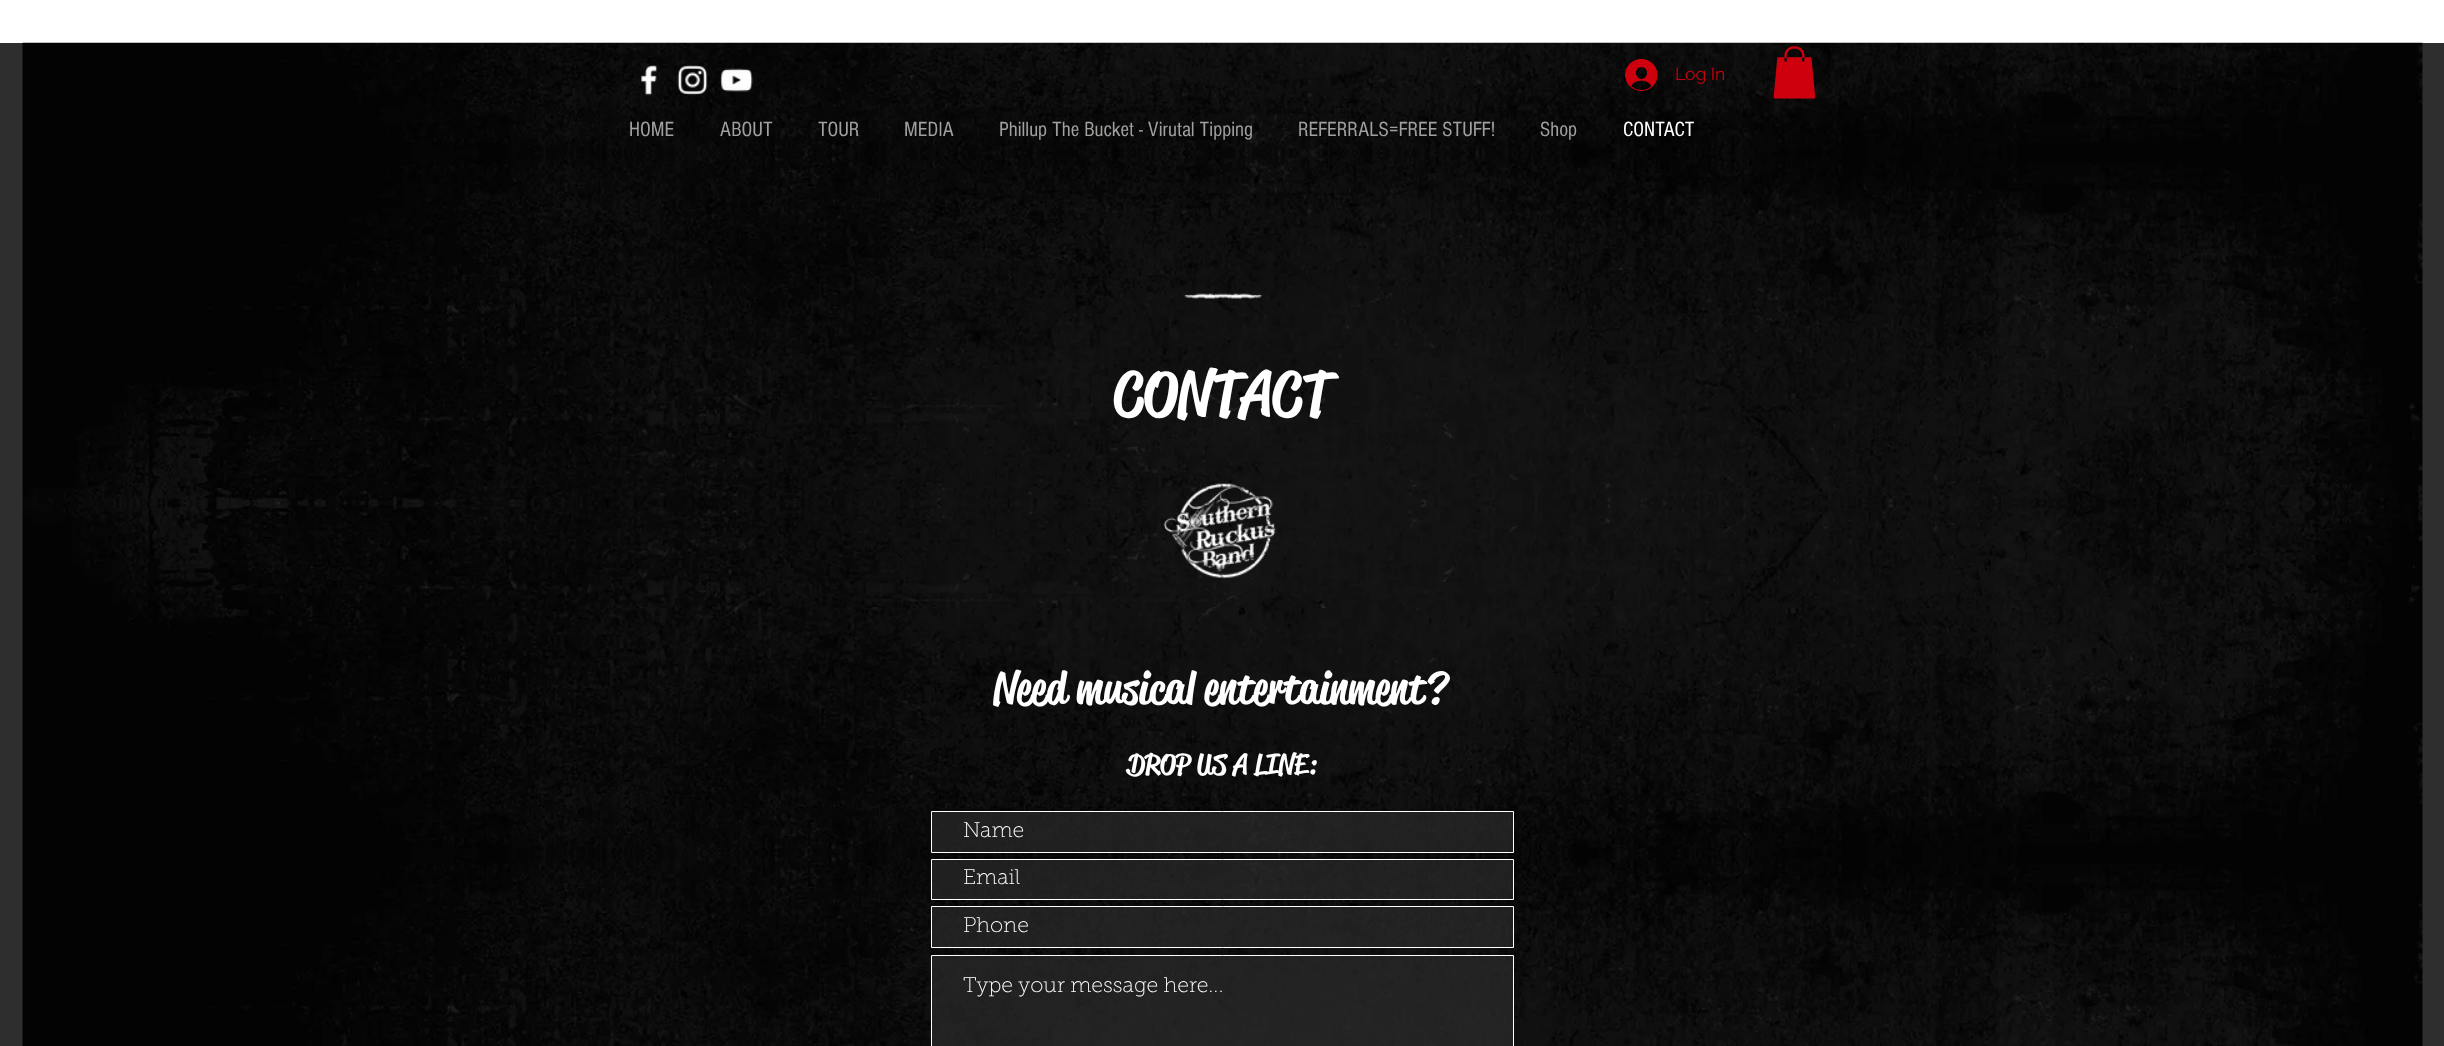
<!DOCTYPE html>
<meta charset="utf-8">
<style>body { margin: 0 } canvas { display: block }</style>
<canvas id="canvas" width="2444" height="1046"></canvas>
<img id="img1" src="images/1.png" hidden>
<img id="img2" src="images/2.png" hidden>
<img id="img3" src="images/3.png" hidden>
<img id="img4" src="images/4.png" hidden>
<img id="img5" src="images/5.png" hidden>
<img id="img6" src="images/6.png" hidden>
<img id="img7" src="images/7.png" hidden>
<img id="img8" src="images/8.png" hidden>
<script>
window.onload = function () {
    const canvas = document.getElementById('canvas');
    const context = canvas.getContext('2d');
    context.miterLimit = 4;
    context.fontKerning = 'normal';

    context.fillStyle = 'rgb(255, 255, 255)';
    context.fillRect(0, 0, 2444, 1046);
    context.fillStyle = 'rgb(47, 46, 46)';
    context.fillRect(0, 43, 2444, 1003);
    context.drawImage(document.getElementById('img1'), 22, 42, 2401, 1004);
    context.drawImage(document.getElementById('img2'), 641, 65, 17, 31);
    context.drawImage(document.getElementById('img3'), 677, 65, 31, 30);
    context.drawImage(document.getElementById('img4'), 720, 68, 33, 24);
    context.drawImage(document.getElementById('img5'), 1625, 59, 33, 32);
    context.drawImage(document.getElementById('img6'), 1773, 46, 43, 53);
    context.drawImage(document.getElementById('img7'), 1184, 293, 79, 6);
    context.drawImage(document.getElementById('img8'), 1163, 483, 113, 96);
    context.fillStyle = 'rgba(47, 46, 46, 0.65)';
    context.beginPath();
    context.rect(931.5, 811.5, 582, 41);
    context.fill();
    context.strokeStyle = 'rgb(255, 255, 255)';
    context.stroke();
    context.beginPath();
    context.rect(931.5, 859.5, 582, 40);
    context.fill();
    context.stroke();
    context.beginPath();
    context.rect(931.5, 906.5, 582, 41);
    context.fill();
    context.stroke();
    context.beginPath();
    context.rect(931.5, 955.5, 582, 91);
    context.fill();
    context.stroke();
    context.font = '17.5px Raleway';
    context.fillStyle = 'rgb(207, 0, 14)';
    context.fillText('Log In', 1675, 80);
    context.font = '21.25px "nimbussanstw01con"';
    context.fillStyle = 'rgb(160, 160, 159)';
    context.fillText('HOME', 629, 136);
    context.fillText('ABOUT', 720, 136);
    context.fillText('TOUR', 818, 136);
    context.fillText('MEDIA', 904, 136);
    context.fillText('Phillup The Bucket - Virutal Tipping', 999, 136);
    context.fillText('REFERRALS=FREE STUFF!', 1298, 136);
    context.fillText('Shop', 1540, 136);
    context.fillStyle = 'rgb(255, 255, 255)';
    context.fillText('CONTACT', 1623, 136);
    context.font = '500 62.5px "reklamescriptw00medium"';
    context.fillText('CONTACT', 1113, 415);
    context.font = '500 43.75px "reklamescriptw00medium"';
    context.fillText('Need musical entertainment?', 993, 703);
    context.font = '500 28.75px "reklamescriptw00medium"';
    context.fillText('DROP US A LINE:', 1127, 774);
    context.font = '100 21.25px "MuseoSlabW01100"';
    context.fillText('Name', 963, 837);
    context.fillText('Email', 963, 884);
    context.fillText('Phone', 963, 932);
    context.fillText('Type your message here...', 963, 992);
};
</script>
